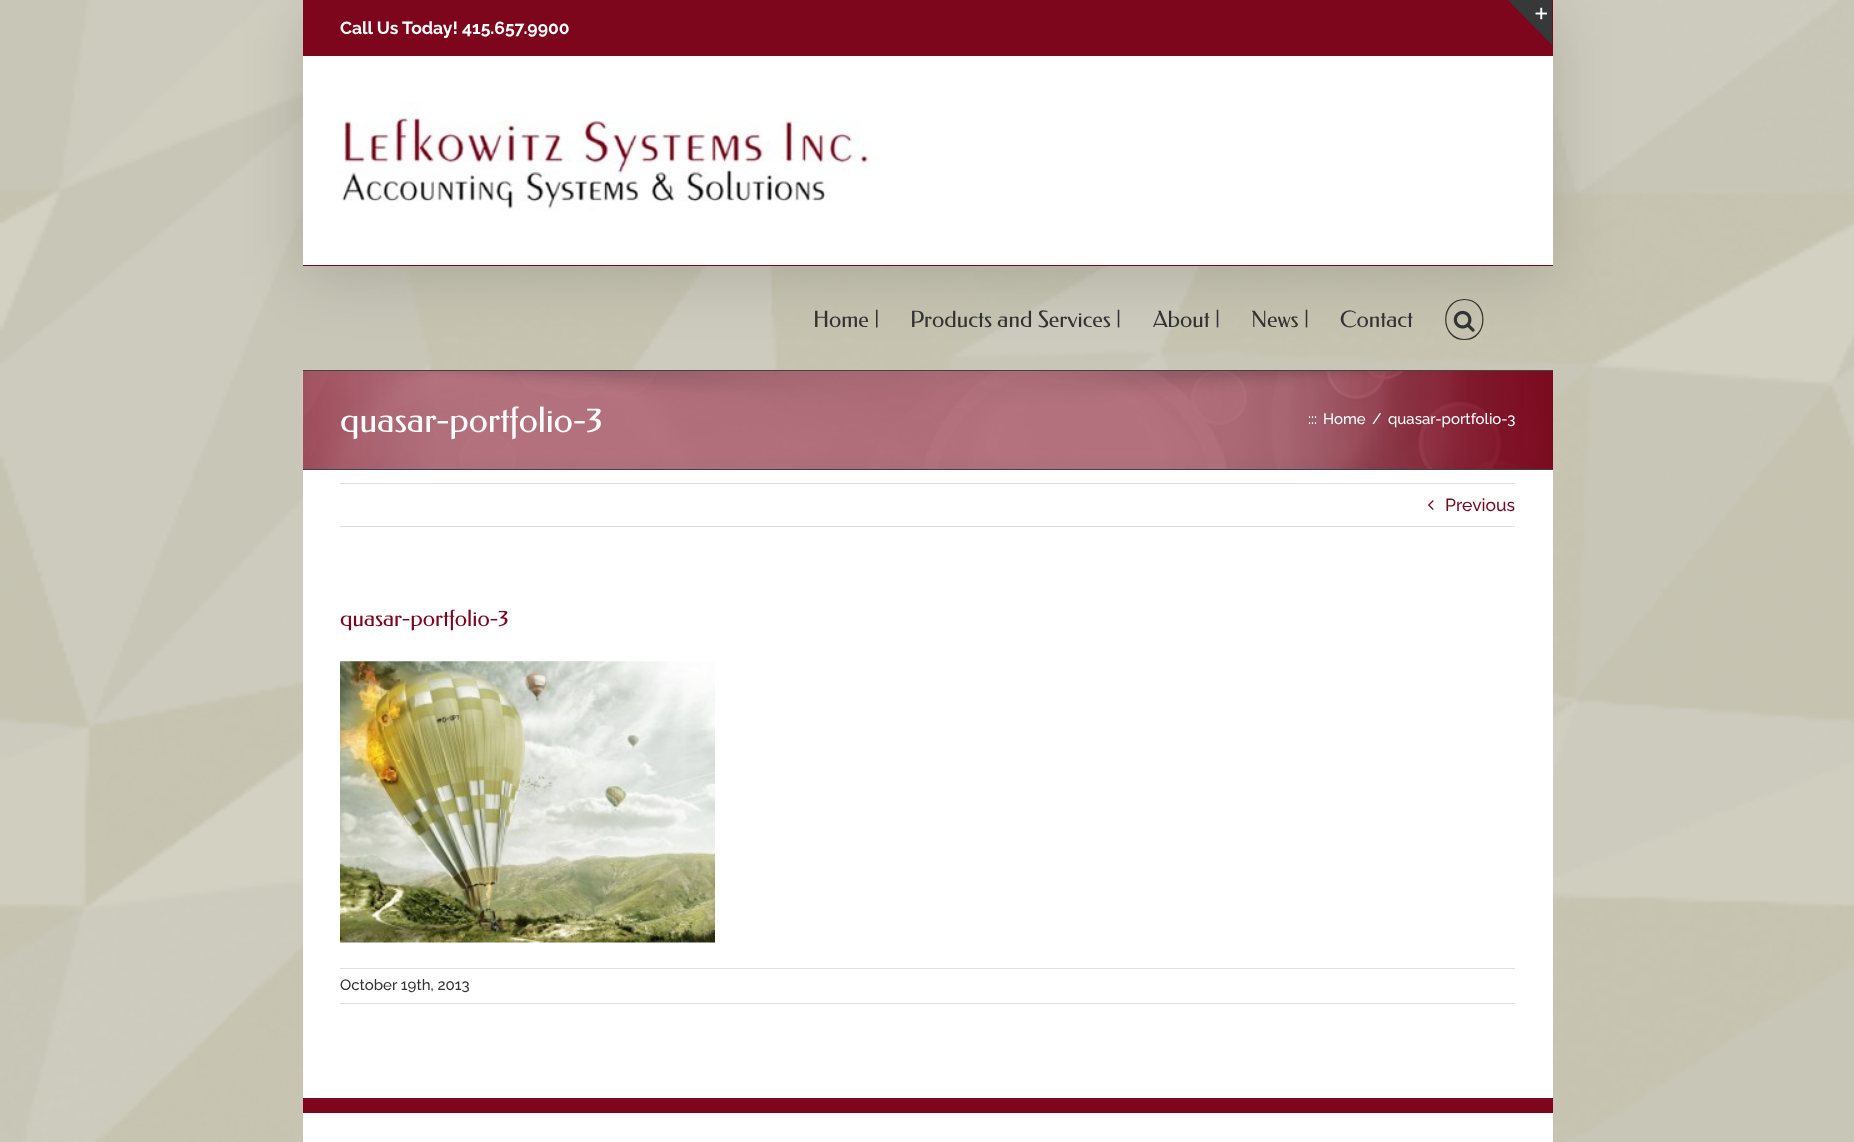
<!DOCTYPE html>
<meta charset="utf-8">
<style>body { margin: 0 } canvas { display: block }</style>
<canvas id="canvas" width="1854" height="1142"></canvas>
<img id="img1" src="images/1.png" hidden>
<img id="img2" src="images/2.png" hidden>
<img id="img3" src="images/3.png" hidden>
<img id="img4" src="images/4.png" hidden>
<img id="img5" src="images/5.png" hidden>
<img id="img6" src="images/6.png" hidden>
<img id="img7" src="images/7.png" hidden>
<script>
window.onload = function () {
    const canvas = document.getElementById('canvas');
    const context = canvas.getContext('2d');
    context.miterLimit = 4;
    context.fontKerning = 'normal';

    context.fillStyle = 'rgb(255, 255, 255)';
    context.fillRect(0, 0, 1854, 1142);
    context.drawImage(document.getElementById('img1'), 0, 0, 1854, 1142);
    context.fillStyle = 'rgba(0, 0, 0, 0.14)';
    context.filter = 'blur(31px)';
    context.beginPath();
    context.rect(305, 15, 1245, 261);
    context.fill();
    context.filter = 'none';
    context.fillStyle = 'rgb(125, 6, 28)';
    context.fillRect(303, 0, 1250, 56);
    context.fillStyle = 'rgb(255, 255, 255)';
    context.fillRect(303, 56, 1250, 209);
    context.fillStyle = 'rgb(125, 6, 28)';
    context.fillRect(303, 265, 1250, 1);
    context.drawImage(document.getElementById('img2'), 340, 101, 531, 110);
    context.beginPath();
    context.moveTo(1464.5, 299.5);
    context.bezierCurveTo(1489, 299.5, 1489, 339.5, 1464.5, 339.5);
    context.bezierCurveTo(1439.5, 339.5, 1439.5, 299.5, 1464.5, 299.5);
    context.closePath();
    context.strokeStyle = 'rgb(51, 51, 51)';
    context.lineWidth = 1.2;
    context.stroke();
    context.drawImage(document.getElementById('img3'), 1453, 310, 22, 22);
    context.fillStyle = 'rgb(54, 56, 57)';
    context.beginPath();
    context.moveTo(1508, 0);
    context.lineTo(1552, 0);
    context.lineTo(1552, 45);
    context.closePath();
    context.fill();
    context.drawImage(document.getElementById('img4'), 1535, 7, 12, 13);
    context.fillStyle = 'rgb(125, 6, 28)';
    context.fillRect(303, 371, 1250, 98);
    context.drawImage(document.getElementById('img5'), 302, 370, 1250, 100);
    context.fillStyle = 'rgb(68, 68, 68)';
    context.fillRect(303, 370, 1250, 1);
    context.fillRect(303, 469, 1250, 1);
    context.fillStyle = 'rgb(255, 255, 255)';
    context.fillRect(303, 470, 1250, 628);
    context.fillStyle = 'rgb(224, 222, 222)';
    context.fillRect(340, 483, 1175, 1);
    context.fillRect(340, 526, 1175, 1);
    context.drawImage(document.getElementById('img6'), 1428, 500, 6, 10);
    context.drawImage(document.getElementById('img7'), 340, 661, 375, 282);
    context.fillRect(340, 968, 1175, 1);
    context.fillRect(340, 1003, 1175, 1);
    context.fillStyle = 'rgb(255, 255, 255)';
    context.fillRect(303, 1113, 1250, 29);
    context.fillStyle = 'rgb(125, 6, 28)';
    context.fillRect(303, 1098, 1250, 15);
    context.font = 'bold 17.5px Raleway';
    context.fillStyle = 'rgb(255, 255, 255)';
    context.fillText('Call Us Today! 415.657.9900', 340, 34);
    context.font = '22.5px Federo';
    context.fillStyle = 'rgb(51, 51, 51)';
    context.fillText('Home |', 813, 327);
    context.fillText('Products and Services |', 910, 327);
    context.fillText('About |', 1153, 327);
    context.fillText('News |', 1251, 327);
    context.fillText('Contact', 1340, 327);
    context.font = '35px Federo';
    context.fillStyle = 'rgb(255, 255, 255)';
    context.fillText('quasar-portfolio-3', 340, 432);
    context.font = '500 15px Raleway';
    context.fillText(':::', 1308, 424);
    context.fillText('Home', 1323, 424);
    context.fillText('/', 1372, 424);
    context.fillText('quasar-portfolio-3', 1388, 424);
    context.font = '500 17.5px Raleway';
    context.fillStyle = 'rgb(125, 6, 28)';
    context.fillText('Previous', 1445, 511);
    context.font = '22.5px Federo';
    context.fillText('quasar-portfolio-3', 340, 626);
    context.font = '500 15px Raleway';
    context.fillStyle = 'rgb(51, 51, 51)';
    context.fillText('October 19th, 2013', 340, 990);
};
</script>
